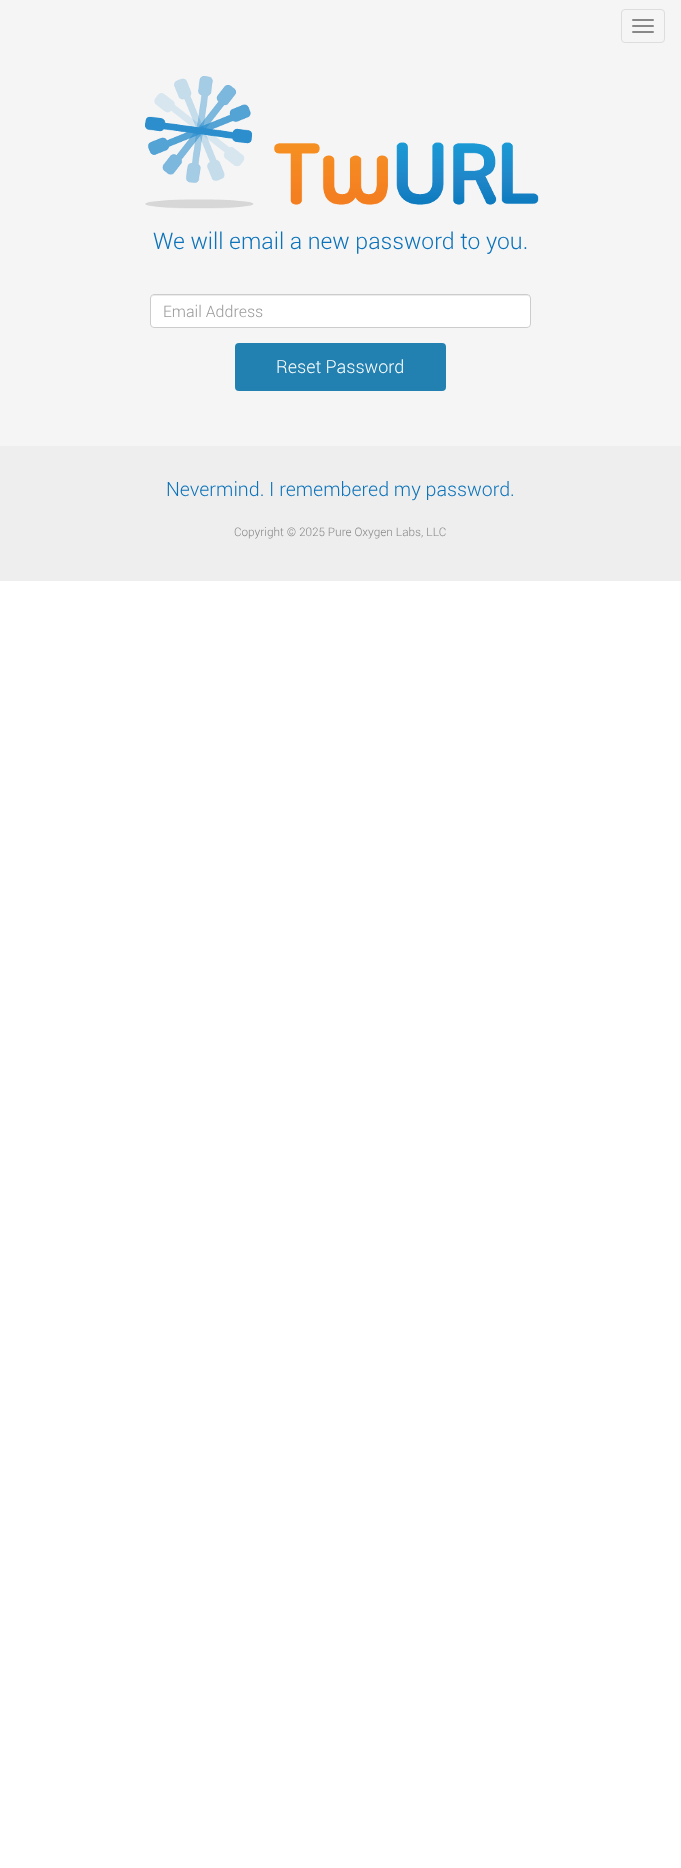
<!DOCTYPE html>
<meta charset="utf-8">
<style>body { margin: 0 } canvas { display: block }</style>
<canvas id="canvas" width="681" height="1868"></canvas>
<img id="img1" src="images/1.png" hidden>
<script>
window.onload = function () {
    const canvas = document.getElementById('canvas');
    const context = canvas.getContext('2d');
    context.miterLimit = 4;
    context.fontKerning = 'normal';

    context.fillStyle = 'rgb(255, 255, 255)';
    context.fillRect(0, 0, 681, 1868);
    context.fillStyle = 'rgb(245, 245, 245)';
    context.fillRect(0, 0, 681, 446);
    context.beginPath();
    context.roundRect(621.5, 9.5, 43, 33, 3.5);
    context.strokeStyle = 'rgb(221, 221, 221)';
    context.stroke();
    context.fillStyle = 'rgb(136, 136, 136)';
    context.beginPath();
    context.roundRect(632, 19, 22, 2, 1);
    context.fill();
    context.beginPath();
    context.roundRect(632, 25, 22, 2, 1);
    context.fill();
    context.beginPath();
    context.roundRect(632, 31, 22, 2, 1);
    context.fill();
    context.drawImage(document.getElementById('img1'), 145, 76, 394, 133);
    context.fillStyle = 'rgb(255, 255, 255)';
    context.beginPath();
    context.roundRect(150, 294, 381, 34, 4);
    context.fill();
    context.fillStyle = 'rgb(236, 236, 236)';
    context.beginPath();
    context.moveTo(154, 296);
    context.lineTo(527, 296);
    context.bezierCurveTo(529, 296, 530, 297, 530, 299);
    context.bezierCurveTo(530, 297, 529, 295, 527, 295);
    context.lineTo(154, 295);
    context.bezierCurveTo(152, 295, 151, 297, 151, 299);
    context.bezierCurveTo(151, 297, 152, 296, 154, 296);
    context.closePath();
    context.fill();
    context.beginPath();
    context.roundRect(150.5, 294.5, 380, 33, 3.5);
    context.strokeStyle = 'rgb(204, 204, 204)';
    context.stroke();
    context.fillStyle = 'rgb(34, 129, 176)';
    context.beginPath();
    context.roundRect(235, 343, 211, 48, 4);
    context.fill();
    context.fillStyle = 'rgb(238, 238, 238)';
    context.fillRect(0, 446, 681, 135);
    context.font = '300 23px Roboto';
    context.fillStyle = 'rgb(12, 115, 186)';
    context.fillText('We will email a new password to you.', 153, 249);
    context.font = '300 16px Roboto';
    context.fillStyle = 'rgb(153, 153, 153)';
    context.fillText('Email Address', 163, 317);
    context.font = '300 18px Roboto';
    context.fillStyle = 'rgb(255, 255, 255)';
    context.fillText('Reset Password', 276, 373);
    context.font = '300 19.6px Roboto';
    context.fillStyle = 'rgb(12, 115, 186)';
    context.fillText('Nevermind. I remembered my password.', 166, 496);
    context.font = '300 11.75px Roboto';
    context.fillStyle = 'rgb(136, 136, 136)';
    context.fillText('Copyright © 2025 Pure Oxygen Labs, LLC', 234, 536);
};
</script>
